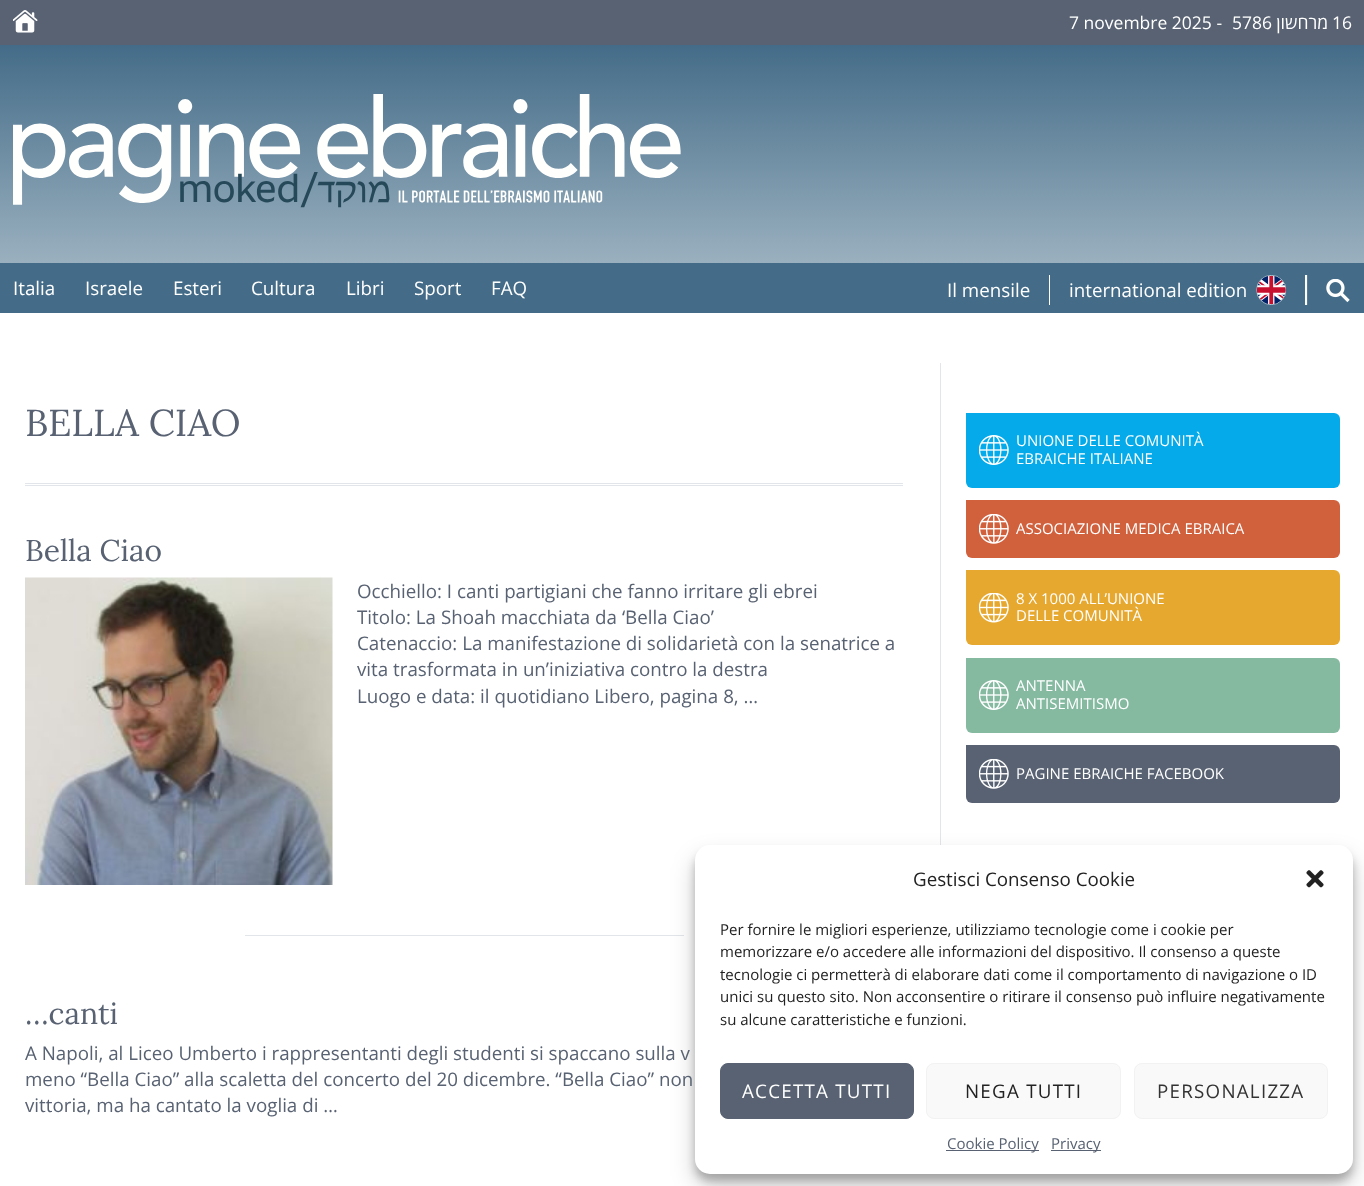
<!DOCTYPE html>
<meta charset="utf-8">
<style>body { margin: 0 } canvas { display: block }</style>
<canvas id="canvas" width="1364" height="1186"></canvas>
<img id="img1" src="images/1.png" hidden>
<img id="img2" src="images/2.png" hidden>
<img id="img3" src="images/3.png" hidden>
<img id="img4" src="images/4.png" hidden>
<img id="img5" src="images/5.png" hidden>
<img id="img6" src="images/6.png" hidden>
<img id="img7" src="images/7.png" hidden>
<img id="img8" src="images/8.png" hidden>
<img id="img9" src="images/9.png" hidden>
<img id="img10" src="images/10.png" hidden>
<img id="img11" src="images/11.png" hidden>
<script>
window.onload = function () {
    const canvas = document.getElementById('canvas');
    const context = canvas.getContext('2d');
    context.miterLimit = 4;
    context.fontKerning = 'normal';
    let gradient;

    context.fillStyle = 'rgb(255, 255, 255)';
    context.fillRect(0, 0, 1364, 1186);
    context.fillStyle = 'rgb(88, 98, 114)';
    context.fillRect(0, 0, 1364, 45);
    context.drawImage(document.getElementById('img1'), 13, 10, 25, 23);
    gradient = context.createLinearGradient(683, 263, 683, 45);
    gradient.addColorStop(0, 'rgb(154, 176, 191)');
    gradient.addColorStop(1, 'rgb(68, 108, 136)');
    context.fillStyle = gradient;
    context.fillRect(0, 45, 1364, 218);
    context.drawImage(document.getElementById('img2'), 13, 94, 668, 114);
    context.fillStyle = 'rgb(68, 108, 136)';
    context.fillRect(0, 263, 1364, 50);
    context.fillStyle = 'rgb(255, 255, 255)';
    context.fillRect(1049, 275, 1, 30);
    context.drawImage(document.getElementById('img3'), 1256, 275, 30, 30);
    context.fillStyle = 'rgb(87, 123, 148)';
    context.fillRect(1307, 275, 1, 30);
    context.fillStyle = 'rgb(255, 255, 255)';
    context.fillRect(1305, 275, 2, 30);
    context.drawImage(document.getElementById('img4'), 1326, 279, 24, 24);
    context.fillStyle = 'rgb(226, 230, 235)';
    context.fillRect(25, 483, 878, 1);
    context.fillRect(25, 485, 878, 1);
    context.drawImage(document.getElementById('img5'), 25, 577, 308, 308);
    context.fillRect(245, 935, 439, 1);
    context.fillRect(940, 363, 1, 482);
    context.fillStyle = 'rgb(4, 170, 233)';
    context.beginPath();
    context.roundRect(966, 413, 374, 75, [0, 6, 6, 6]);
    context.fill();
    context.drawImage(document.getElementById('img6'), 979, 435, 30, 30);
    context.fillStyle = 'rgb(209, 96, 61)';
    context.beginPath();
    context.roundRect(966, 500, 374, 58, [0, 6, 6, 6]);
    context.fill();
    context.drawImage(document.getElementById('img7'), 979, 514, 30, 30);
    context.fillStyle = 'rgb(230, 168, 46)';
    context.beginPath();
    context.roundRect(966, 570, 374, 75, [0, 6, 6, 6]);
    context.fill();
    context.drawImage(document.getElementById('img8'), 979, 593, 30, 30);
    context.fillStyle = 'rgb(133, 186, 161)';
    context.beginPath();
    context.roundRect(966, 658, 374, 75, [0, 6, 6, 6]);
    context.fill();
    context.drawImage(document.getElementById('img9'), 979, 680, 30, 30);
    context.fillStyle = 'rgb(88, 98, 114)';
    context.beginPath();
    context.roundRect(966, 745, 374, 58, [0, 6, 6, 6]);
    context.fill();
    context.drawImage(document.getElementById('img10'), 979, 759, 30, 30);
    context.fillStyle = 'rgba(0, 0, 0, 0.23)';
    context.filter = 'blur(4px)';
    context.beginPath();
    context.roundRect(695, 853, 658, 328, 15);
    context.fill();
    context.filter = 'none';
    context.fillStyle = 'rgba(0, 0, 0, 0.19)';
    context.filter = 'blur(12.5px)';
    context.beginPath();
    context.roundRect(695, 858, 658, 328, 15);
    context.fill();
    context.filter = 'none';
    context.fillStyle = 'rgb(255, 255, 255)';
    context.beginPath();
    context.roundRect(695, 845, 658, 329, 15);
    context.fill();
    context.drawImage(document.getElementById('img11'), 1306, 870, 18, 18);
    context.fillStyle = 'rgb(88, 98, 114)';
    context.beginPath();
    context.roundRect(720.5, 1063.5, 193, 55, 7.5);
    context.fill();
    context.strokeStyle = 'rgb(88, 98, 114)';
    context.stroke();
    context.fillStyle = 'rgb(249, 249, 249)';
    context.beginPath();
    context.roundRect(926.5, 1063.5, 194, 55, 7.5);
    context.fill();
    context.strokeStyle = 'rgb(242, 242, 242)';
    context.stroke();
    context.beginPath();
    context.roundRect(1134.5, 1063.5, 193, 55, 7.5);
    context.fill();
    context.stroke();
    context.fillStyle = 'rgb(88, 98, 114)';
    context.fillRect(946, 1150, 93, 1);
    context.fillRect(1051, 1150, 50, 1);
    context.font = '17.5px Open Sans';
    context.fillStyle = 'rgb(255, 255, 255)';
    context.fillText('7 novembre 2025 -', 1069, 29);
    context.fillText('5786', 1232, 29);
    context.direction = 'rtl';
    context.fillText('מרחשון', 1328, 29);
    context.direction = 'ltr';
    context.fillText('16', 1332, 29);
    context.font = '18.75px Open Sans';
    context.fillText('Italia', 13, 295);
    context.fillText('Israele', 85, 295);
    context.fillText('Esteri', 173, 295);
    context.fillText('Cultura', 251, 295);
    context.fillText('Libri', 346, 295);
    context.fillText('Sport', 414, 295);
    context.fillText('FAQ', 491, 295);
    context.fillText('Il mensile', 947, 297);
    context.fillText('international edition', 1069, 297);
    context.font = '37.5px Lora';
    context.fillStyle = 'rgb(88, 98, 114)';
    context.fillText('BELLA CIAO', 25, 436);
    context.font = '30px Lora';
    context.fillText('Bella Ciao', 25, 561);
    context.font = '18.75px Open Sans';
    context.fillText('Occhiello: I canti partigiani che fanno irritare gli ebrei', 357, 598);
    context.fillText('Titolo: La Shoah macchiata da ‘Bella Ciao’', 357, 624);
    context.fillText('Catenaccio: La manifestazione di solidarietà con la senatrice a', 357, 650);
    context.fillText('vita trasformata in un’iniziativa contro la destra', 357, 676);
    context.fillText('Luogo e data: il quotidiano Libero, pagina 8, …', 357, 703);
    context.font = '30px Lora';
    context.fillText('…canti', 25, 1024);
    context.font = '18.75px Open Sans';
    context.fillText('A Napoli, al Liceo Umberto i rappresentanti degli studenti si spaccano sulla v', 25, 1060);
    context.fillText('meno “Bella Ciao” alla scaletta del concerto del 20 dicembre. “Bella Ciao” non', 25, 1086);
    context.fillText('vittoria, ma ha cantato la voglia di …', 25, 1112);
    context.font = '15px Open Sans';
    context.fillStyle = 'rgb(255, 255, 255)';
    context.fillText('UNIONE DELLE COMUNITÀ', 1016, 446);
    context.fillText('EBRAICHE ITALIANE', 1016, 464);
    context.fillText('ASSOCIAZIONE MEDICA EBRAICA', 1016, 534);
    context.fillText('8 X 1000 ALL’UNIONE', 1016, 604);
    context.fillText('DELLE COMUNITÀ', 1016, 621);
    context.fillText('ANTENNA', 1016, 691);
    context.fillText('ANTISEMITISMO', 1016, 709);
    context.fillText('PAGINE EBRAICHE FACEBOOK', 1016, 779);
    context.font = '18.75px Open Sans';
    context.fillStyle = 'rgb(34, 34, 34)';
    context.fillText('Gestisci Consenso Cookie', 913, 886);
    context.font = '15px Open Sans';
    context.fillText('Per fornire le migliori esperienze, utilizziamo tecnologie come i cookie per', 720, 935);
    context.fillText('memorizzare e/o accedere alle informazioni del dispositivo. Il consenso a queste', 720, 957);
    context.fillText('tecnologie ci permetterà di elaborare dati come il comportamento di navigazione o ID', 720, 980);
    context.fillText('unici su questo sito. Non acconsentire o ritirare il consenso può influire negativamente', 720, 1002);
    context.fillText('su alcune caratteristiche e funzioni.', 720, 1025);
    context.letterSpacing = '1.25px';
    context.font = '18.75px Open Sans';
    context.fillStyle = 'rgb(255, 255, 255)';
    context.fillText('ACCETTA TUTTI', 742, 1098);
    context.fillStyle = 'rgb(34, 34, 34)';
    context.fillText('NEGA TUTTI', 965, 1098);
    context.fillStyle = 'rgb(51, 51, 51)';
    context.fillText('PERSONALIZZA', 1157, 1098);
    context.letterSpacing = '0px';
    context.font = '15px Open Sans';
    context.fillStyle = 'rgb(88, 98, 114)';
    context.fillText('Cookie Policy', 947, 1149);
    context.fillText('Privacy', 1051, 1149);
};
</script>
